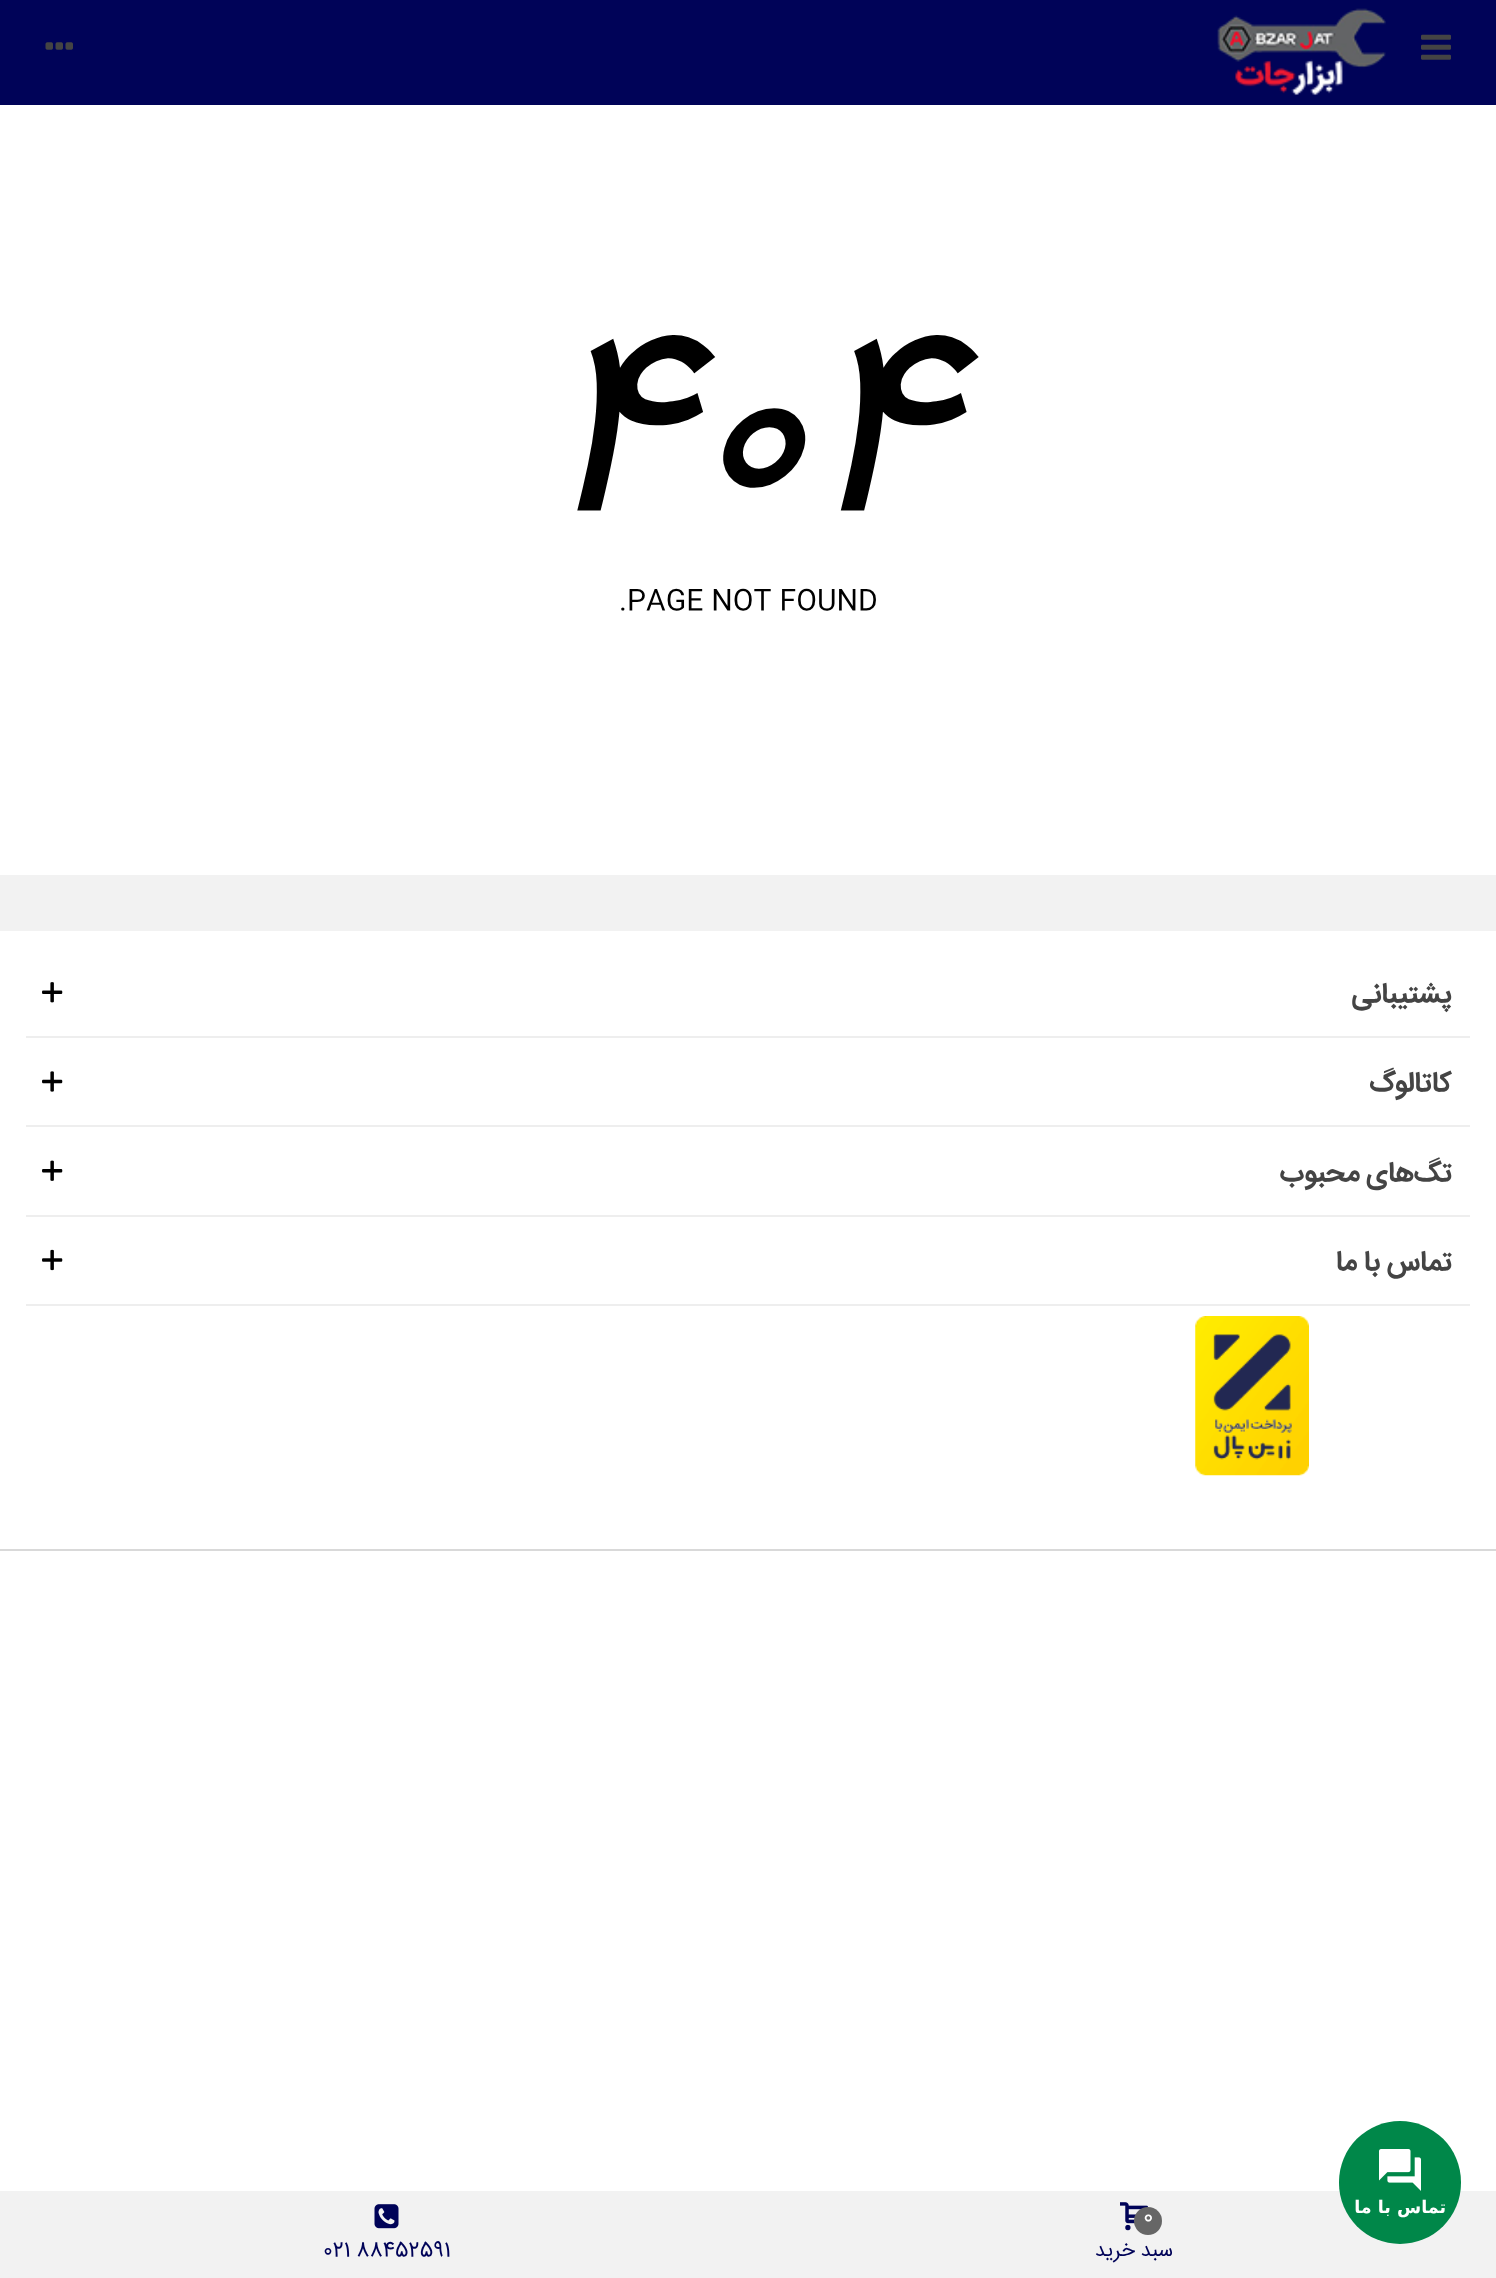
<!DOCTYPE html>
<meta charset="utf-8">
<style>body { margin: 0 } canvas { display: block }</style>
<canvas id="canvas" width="1496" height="2278"></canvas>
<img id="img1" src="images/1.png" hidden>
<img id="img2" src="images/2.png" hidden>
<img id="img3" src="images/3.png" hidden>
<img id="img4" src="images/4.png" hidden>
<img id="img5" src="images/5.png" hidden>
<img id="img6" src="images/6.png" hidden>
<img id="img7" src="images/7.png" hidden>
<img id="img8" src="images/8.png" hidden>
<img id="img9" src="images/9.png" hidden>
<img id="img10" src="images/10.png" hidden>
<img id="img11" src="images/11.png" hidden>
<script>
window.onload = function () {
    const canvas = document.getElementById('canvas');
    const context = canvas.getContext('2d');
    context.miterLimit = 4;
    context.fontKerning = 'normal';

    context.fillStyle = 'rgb(255, 255, 255)';
    context.fillRect(0, 0, 1496, 2278);
    context.fillStyle = 'rgb(0, 3, 88)';
    context.fillRect(0, 0, 1496, 105);
    context.drawImage(document.getElementById('img1'), 1421, 34, 30, 26);
    context.drawImage(document.getElementById('img2'), 1217, 8, 169, 88);
    context.drawImage(document.getElementById('img3'), 45, 42, 28, 8);
    context.fillStyle = 'rgb(242, 242, 242)';
    context.fillRect(0, 875, 1496, 56);
    context.fillStyle = 'rgb(238, 238, 238)';
    context.fillRect(26, 1036, 1444, 2);
    context.drawImage(document.getElementById('img4'), 42, 982, 21, 21);
    context.fillRect(26, 1125, 1444, 2);
    context.drawImage(document.getElementById('img5'), 42, 1071, 21, 21);
    context.fillRect(26, 1215, 1444, 2);
    context.drawImage(document.getElementById('img6'), 42, 1160, 21, 21);
    context.fillRect(26, 1304, 1444, 2);
    context.drawImage(document.getElementById('img7'), 42, 1249, 21, 22);
    context.drawImage(document.getElementById('img8'), 1195, 1316, 114, 160);
    context.fillStyle = 'rgb(217, 217, 217)';
    context.fillRect(0, 1549, 1496, 2);
    context.fillStyle = 'rgb(242, 242, 242)';
    context.fillRect(0, 2191, 1496, 87);
    context.drawImage(document.getElementById('img9'), 1120, 2202, 28, 29);
    context.fillStyle = 'rgb(102, 102, 102)';
    context.beginPath();
    context.arc(1148, 2221, 14, 0, 2 * Math.PI);
    context.fill();
    context.drawImage(document.getElementById('img10'), 374, 2204, 25, 25);
    context.fillStyle = 'rgb(0, 135, 73)';
    context.beginPath();
    context.roundRect(1339, 2121, 122, 123, 61);
    context.fill();
    context.drawImage(document.getElementById('img11'), 1379, 2149, 42, 42);
    context.font = 'italic 245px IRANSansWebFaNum';
    context.fillStyle = 'rgb(0, 0, 0)';
    context.fillText('404', 543, 504);
    context.font = '28px IRANSansWebFaNum';
    context.fillText('.PAGE NOT FOUND', 619, 609);
    context.direction = 'rtl';
    context.font = 'bold 28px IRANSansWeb';
    context.fillStyle = 'rgb(68, 68, 68)';
    context.fillText('پشتیبانی', 1452, 1002);
    context.fillText('کاتالوگ', 1452, 1091);
    context.fillText('تگ‌های محبوب', 1452, 1181);
    context.fillText('تماس با ما', 1452, 1270);
    context.direction = 'ltr';
    context.font = '22px IRANSansWebFaNum';
    context.fillStyle = 'rgb(255, 255, 255)';
    context.fillText('0', 1143, 2223);
    context.direction = 'rtl';
    context.font = '20.5px IRANSansWebFaNum';
    context.fillStyle = 'rgb(0, 3, 88)';
    context.fillText('سبد خرید', 1173, 2256);
    context.direction = 'ltr';
    context.fillText('021 88452591', 323, 2256);
    context.direction = 'rtl';
    context.font = 'bold 17.5px DejaVu Sans';
    context.fillStyle = 'rgb(255, 255, 255)';
    context.fillText('تماس با ما', 1446, 2213);
};
</script>
